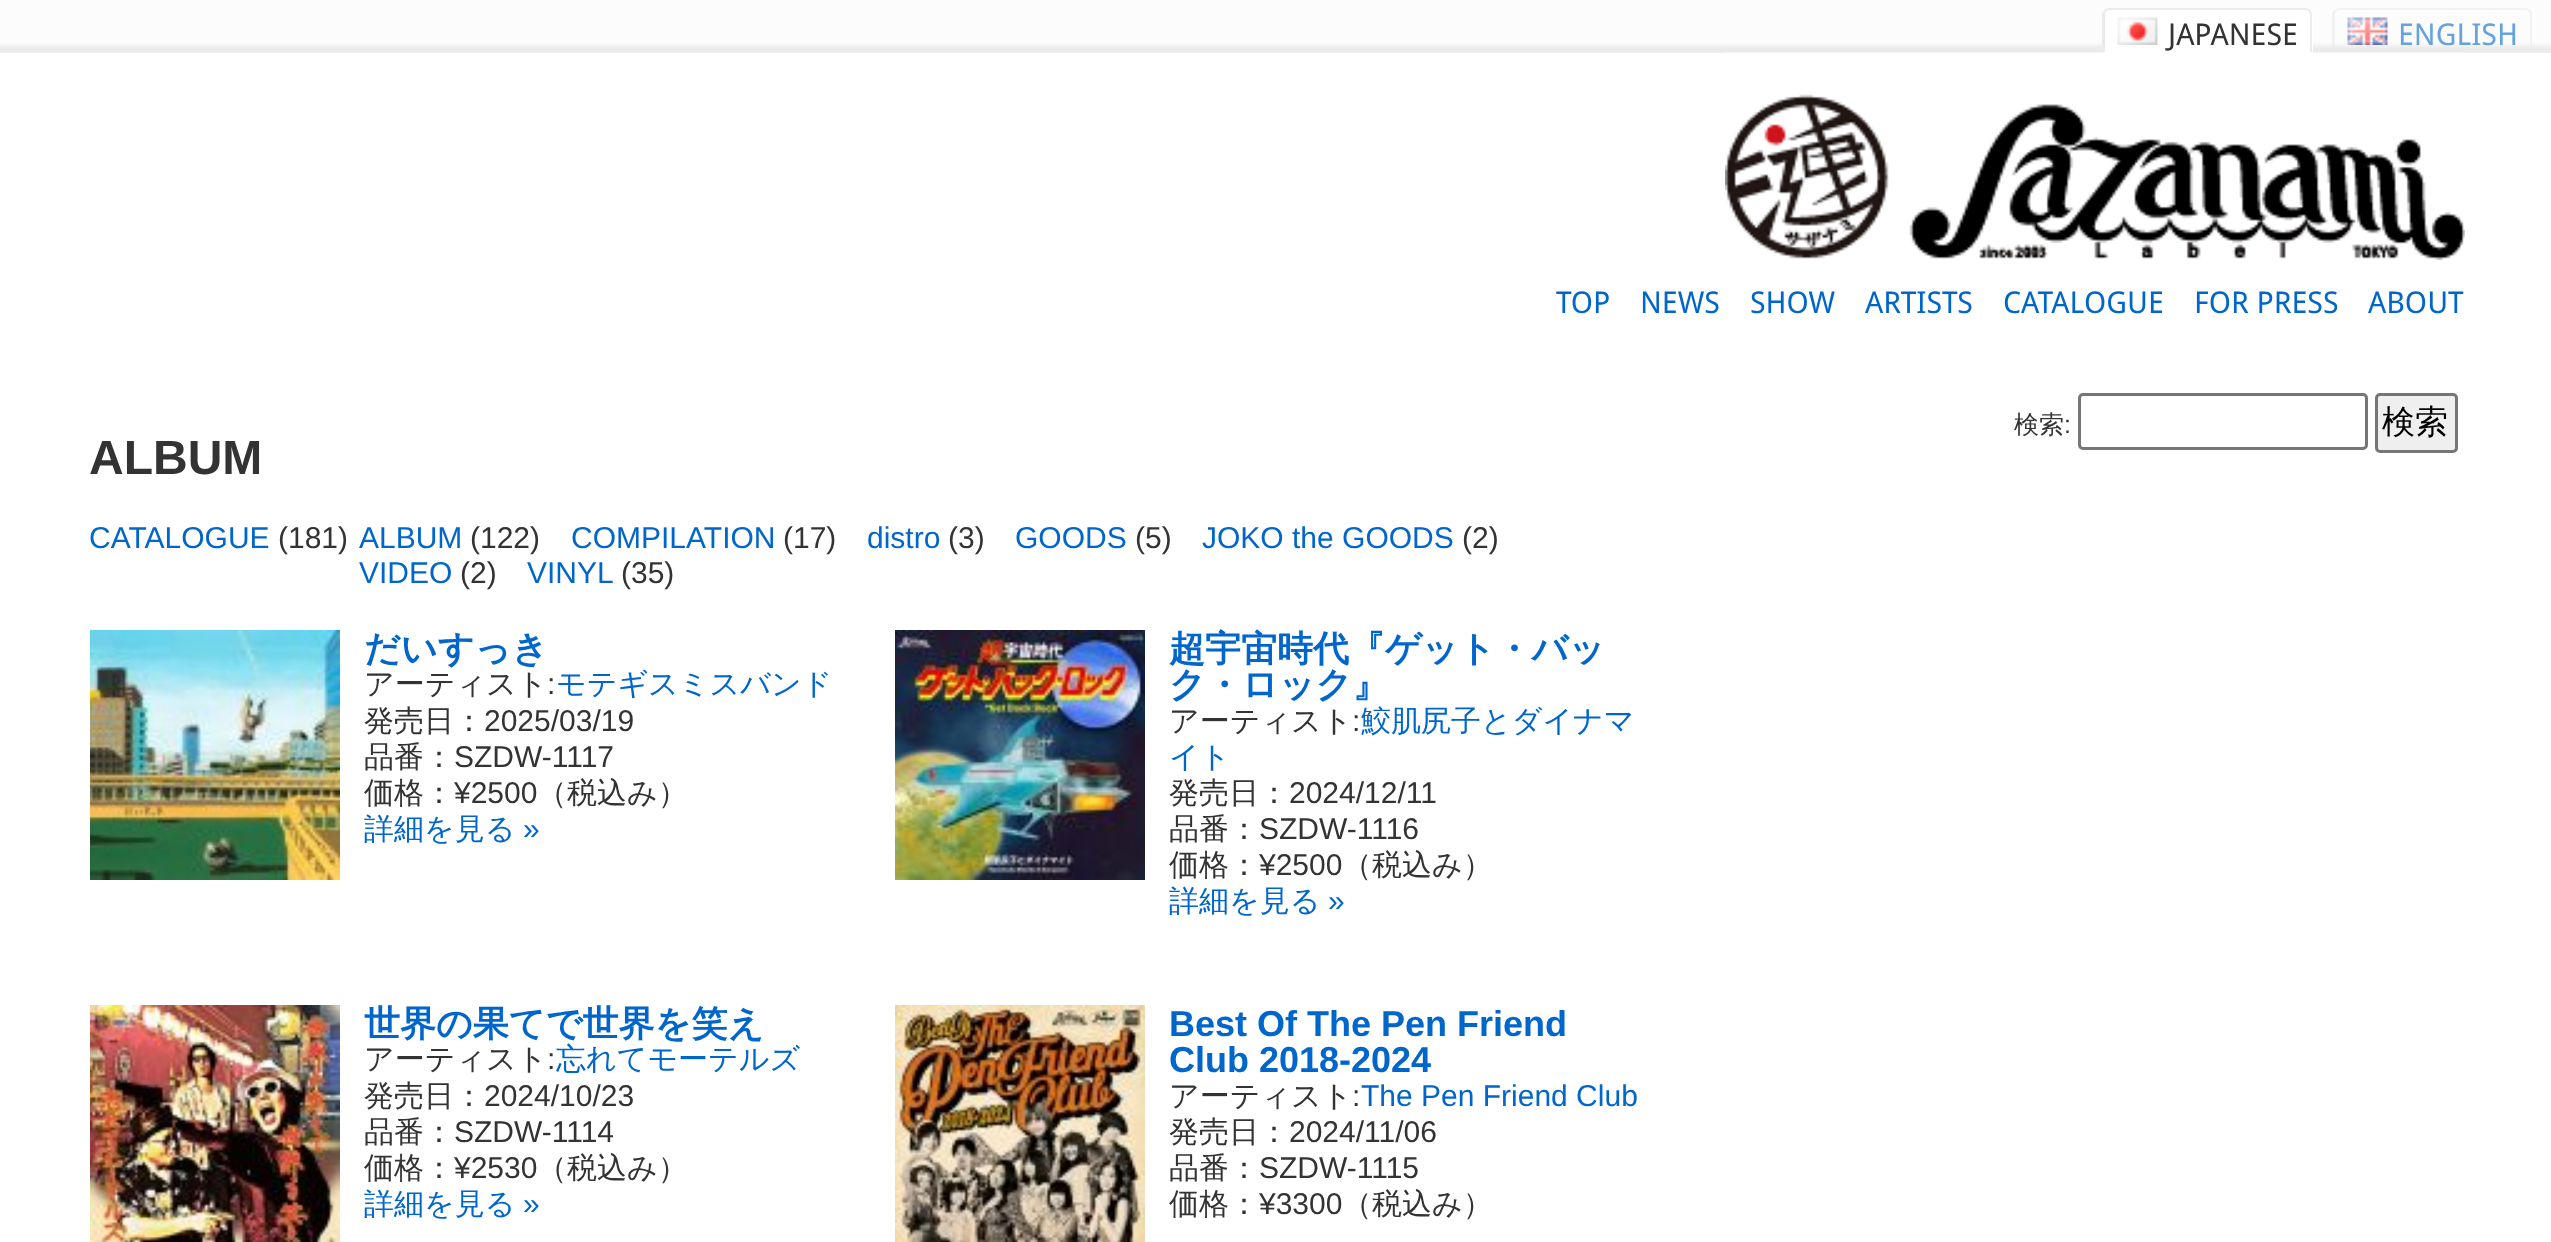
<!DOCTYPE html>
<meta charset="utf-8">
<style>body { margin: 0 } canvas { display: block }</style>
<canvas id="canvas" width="2551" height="1242"></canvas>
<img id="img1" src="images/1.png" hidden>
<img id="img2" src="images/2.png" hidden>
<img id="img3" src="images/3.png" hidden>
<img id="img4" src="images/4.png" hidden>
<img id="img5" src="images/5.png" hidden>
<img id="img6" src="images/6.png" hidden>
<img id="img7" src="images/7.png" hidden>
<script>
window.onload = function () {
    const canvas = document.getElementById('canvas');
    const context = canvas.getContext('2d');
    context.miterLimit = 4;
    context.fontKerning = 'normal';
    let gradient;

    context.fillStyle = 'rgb(255, 255, 255)';
    context.fillRect(0, 0, 2551, 1242);
    gradient = context.createLinearGradient(0, 53, 0, 0);
    gradient.addColorStop(0.09, 'rgb(235, 235, 235)');
    gradient.addColorStop(0.2, 'rgb(252, 252, 252)');
    context.fillStyle = gradient;
    context.fillRect(0, 0, 2551, 53);
    context.fillStyle = 'rgb(255, 255, 255)';
    context.beginPath();
    context.roundRect(2103, 8, 210, 45, [8, 8, 0, 0]);
    context.fill();
    context.drawImage(document.getElementById('img1'), 2117, 17, 41, 28);
    context.fillStyle = 'rgb(235, 235, 235)';
    context.beginPath();
    context.moveTo(2110, 8);
    context.lineTo(2305, 8);
    context.bezierCurveTo(2309, 8, 2312, 11, 2312, 15);
    context.lineTo(2312, 52);
    context.lineTo(2102, 52);
    context.lineTo(2102, 15);
    context.bezierCurveTo(2102, 11, 2106, 8, 2110, 8);
    context.closePath();
    context.moveTo(2110, 10);
    context.lineTo(2305, 10);
    context.bezierCurveTo(2308, 10, 2310, 12, 2310, 15);
    context.lineTo(2310, 52);
    context.lineTo(2105, 52);
    context.lineTo(2105, 15);
    context.bezierCurveTo(2105, 12, 2107, 10, 2110, 10);
    context.closePath();
    context.fill('evenodd');
    context.drawImage(document.getElementById('img2'), 2347, 17, 41, 28);
    context.fillStyle = 'rgba(235, 235, 235, 0.6)';
    context.beginPath();
    context.moveTo(2340, 8);
    context.lineTo(2525, 8);
    context.bezierCurveTo(2529, 8, 2532, 11, 2532, 15);
    context.lineTo(2532, 52);
    context.lineTo(2332, 52);
    context.lineTo(2332, 15);
    context.bezierCurveTo(2332, 11, 2336, 8, 2340, 8);
    context.closePath();
    context.moveTo(2340, 10);
    context.lineTo(2525, 10);
    context.bezierCurveTo(2528, 10, 2530, 12, 2530, 15);
    context.lineTo(2530, 52);
    context.lineTo(2335, 52);
    context.lineTo(2335, 15);
    context.bezierCurveTo(2335, 12, 2337, 10, 2340, 10);
    context.closePath();
    context.fill('evenodd');
    context.drawImage(document.getElementById('img3'), 1725, 52, 740, 208);
    context.beginPath();
    context.roundRect(2079.5, 394.5, 287, 54, 3.5);
    context.strokeStyle = 'rgb(118, 118, 118)';
    context.lineWidth = 3;
    context.stroke();
    context.fillStyle = 'rgb(239, 239, 239)';
    context.beginPath();
    context.roundRect(2376.5, 394.5, 80, 57, 3.5);
    context.fill();
    context.stroke();
    context.drawImage(document.getElementById('img4'), 90, 630, 250, 250);
    context.drawImage(document.getElementById('img5'), 895, 630, 250, 250);
    context.drawImage(document.getElementById('img6'), 90, 1005, 250, 237);
    context.drawImage(document.getElementById('img7'), 895, 1005, 250, 237);
    context.font = '30px Droid Sans';
    context.fillStyle = 'rgb(51, 51, 51)';
    context.fillText('JAPANESE', 2168, 45);
    context.fillStyle = 'rgb(101, 162, 223)';
    context.fillText('ENGLISH', 2398, 45);
    context.fillStyle = 'rgb(0, 102, 204)';
    context.fillText('TOP', 1556, 313);
    context.fillText('NEWS', 1640, 313);
    context.fillText('SHOW', 1750, 313);
    context.fillText('ARTISTS', 1865, 313);
    context.fillText('CATALOGUE', 2003, 313);
    context.fillText('FOR PRESS', 2194, 313);
    context.fillText('ABOUT', 2368, 313);
    context.font = '500 25px WenQuanYi Zen Hei';
    context.fillStyle = 'rgb(51, 51, 51)';
    context.fillText('検索', 2014, 433);
    context.font = '25px Liberation Sans';
    context.fillText(':', 2064, 433);
    context.font = '500 33px WenQuanYi Zen Hei';
    context.fillStyle = 'rgb(0, 0, 0)';
    context.fillText('検索', 2382, 433);
    context.font = 'bold 48px Liberation Sans';
    context.fillStyle = 'rgb(51, 51, 51)';
    context.fillText('ALBUM', 89, 474);
    context.font = '30px Liberation Sans';
    context.fillStyle = 'rgb(0, 102, 204)';
    context.fillText('CATALOGUE', 89, 548);
    context.fillStyle = 'rgb(51, 51, 51)';
    context.fillText('(181)', 278, 548);
    context.fillStyle = 'rgb(0, 102, 204)';
    context.fillText('ALBUM', 359, 548);
    context.fillStyle = 'rgb(51, 51, 51)';
    context.fillText('(122)', 470, 548);
    context.fillStyle = 'rgb(0, 102, 204)';
    context.fillText('COMPILATION', 571, 548);
    context.fillStyle = 'rgb(51, 51, 51)';
    context.fillText('(17)', 783, 548);
    context.fillStyle = 'rgb(0, 102, 204)';
    context.fillText('distro', 867, 548);
    context.fillStyle = 'rgb(51, 51, 51)';
    context.fillText('(3)', 948, 548);
    context.fillStyle = 'rgb(0, 102, 204)';
    context.fillText('GOODS', 1015, 548);
    context.fillStyle = 'rgb(51, 51, 51)';
    context.fillText('(5)', 1135, 548);
    context.fillStyle = 'rgb(0, 102, 204)';
    context.fillText('JOKO the GOODS', 1202, 548);
    context.fillStyle = 'rgb(51, 51, 51)';
    context.fillText('(2)', 1462, 548);
    context.fillStyle = 'rgb(0, 102, 204)';
    context.fillText('VIDEO', 359, 583);
    context.fillStyle = 'rgb(51, 51, 51)';
    context.fillText('(2)', 460, 583);
    context.fillStyle = 'rgb(0, 102, 204)';
    context.fillText('VINYL', 527, 583);
    context.fillStyle = 'rgb(51, 51, 51)';
    context.fillText('(35)', 621, 583);
    context.font = 'bold 36px WenQuanYi Zen Hei';
    context.fillStyle = 'rgb(0, 102, 204)';
    context.fillText('だいすっき', 364, 661);
    context.font = '500 30px WenQuanYi Zen Hei';
    context.fillStyle = 'rgb(51, 51, 51)';
    context.fillText('アーティスト', 364, 694);
    context.font = '30px Liberation Sans';
    context.fillText(':', 547, 694);
    context.font = '500 30px WenQuanYi Zen Hei';
    context.fillStyle = 'rgb(0, 102, 204)';
    context.fillText('モテギスミスバンド', 556, 694);
    context.fillStyle = 'rgb(51, 51, 51)';
    context.fillText('発売日：', 364, 731);
    context.font = '30px Liberation Sans';
    context.fillText('2025/03/19', 484, 731);
    context.font = '500 30px WenQuanYi Zen Hei';
    context.fillText('品番：', 364, 767);
    context.font = '30px Liberation Sans';
    context.fillText('SZDW-1117', 454, 767);
    context.font = '500 30px WenQuanYi Zen Hei';
    context.fillText('価格：', 364, 803);
    context.font = '30px Liberation Sans';
    context.fillText('¥2500', 454, 803);
    context.font = '500 30px WenQuanYi Zen Hei';
    context.fillText('（税込み）', 537, 803);
    context.fillStyle = 'rgb(0, 102, 204)';
    context.fillText('詳細を見る', 364, 839);
    context.font = '30px Liberation Sans';
    context.fillText('»', 523, 839);
    context.font = 'bold 36px WenQuanYi Zen Hei';
    context.fillText('超宇宙時代『ゲット・バッ', 1169, 661);
    context.fillText('ク・ロック』', 1169, 697);
    context.font = '500 30px WenQuanYi Zen Hei';
    context.fillStyle = 'rgb(51, 51, 51)';
    context.fillText('アーティスト', 1169, 731);
    context.font = '30px Liberation Sans';
    context.fillText(':', 1352, 731);
    context.font = '500 30px WenQuanYi Zen Hei';
    context.fillStyle = 'rgb(0, 102, 204)';
    context.fillText('鮫肌尻子とダイナマ', 1361, 731);
    context.fillText('イト', 1169, 767);
    context.fillStyle = 'rgb(51, 51, 51)';
    context.fillText('発売日：', 1169, 803);
    context.font = '30px Liberation Sans';
    context.fillText('2024/12/11', 1289, 803);
    context.font = '500 30px WenQuanYi Zen Hei';
    context.fillText('品番：', 1169, 839);
    context.font = '30px Liberation Sans';
    context.fillText('SZDW-1116', 1259, 839);
    context.font = '500 30px WenQuanYi Zen Hei';
    context.fillText('価格：', 1169, 875);
    context.font = '30px Liberation Sans';
    context.fillText('¥2500', 1259, 875);
    context.font = '500 30px WenQuanYi Zen Hei';
    context.fillText('（税込み）', 1342, 875);
    context.fillStyle = 'rgb(0, 102, 204)';
    context.fillText('詳細を見る', 1169, 911);
    context.font = '30px Liberation Sans';
    context.fillText('»', 1328, 911);
    context.font = 'bold 36px WenQuanYi Zen Hei';
    context.fillText('世界の果てで世界を笑え', 364, 1036);
    context.font = '500 30px WenQuanYi Zen Hei';
    context.fillStyle = 'rgb(51, 51, 51)';
    context.fillText('アーティスト', 364, 1069);
    context.font = '30px Liberation Sans';
    context.fillText(':', 547, 1069);
    context.font = '500 30px WenQuanYi Zen Hei';
    context.fillStyle = 'rgb(0, 102, 204)';
    context.fillText('忘れてモーテルズ', 556, 1069);
    context.fillStyle = 'rgb(51, 51, 51)';
    context.fillText('発売日：', 364, 1106);
    context.font = '30px Liberation Sans';
    context.fillText('2024/10/23', 484, 1106);
    context.font = '500 30px WenQuanYi Zen Hei';
    context.fillText('品番：', 364, 1142);
    context.font = '30px Liberation Sans';
    context.fillText('SZDW-1114', 454, 1142);
    context.font = '500 30px WenQuanYi Zen Hei';
    context.fillText('価格：', 364, 1178);
    context.font = '30px Liberation Sans';
    context.fillText('¥2530', 454, 1178);
    context.font = '500 30px WenQuanYi Zen Hei';
    context.fillText('（税込み）', 537, 1178);
    context.fillStyle = 'rgb(0, 102, 204)';
    context.fillText('詳細を見る', 364, 1214);
    context.font = '30px Liberation Sans';
    context.fillText('»', 523, 1214);
    context.font = 'bold 36px Liberation Sans';
    context.fillText('Best Of The Pen Friend', 1169, 1036);
    context.fillText('Club 2018-2024', 1169, 1072);
    context.font = '500 30px WenQuanYi Zen Hei';
    context.fillStyle = 'rgb(51, 51, 51)';
    context.fillText('アーティスト', 1169, 1106);
    context.font = '30px Liberation Sans';
    context.fillText(':', 1352, 1106);
    context.fillStyle = 'rgb(0, 102, 204)';
    context.fillText('The Pen Friend Club', 1361, 1106);
    context.font = '500 30px WenQuanYi Zen Hei';
    context.fillStyle = 'rgb(51, 51, 51)';
    context.fillText('発売日：', 1169, 1142);
    context.font = '30px Liberation Sans';
    context.fillText('2024/11/06', 1289, 1142);
    context.font = '500 30px WenQuanYi Zen Hei';
    context.fillText('品番：', 1169, 1178);
    context.font = '30px Liberation Sans';
    context.fillText('SZDW-1115', 1259, 1178);
    context.font = '500 30px WenQuanYi Zen Hei';
    context.fillText('価格：', 1169, 1214);
    context.font = '30px Liberation Sans';
    context.fillText('¥3300', 1259, 1214);
    context.font = '500 30px WenQuanYi Zen Hei';
    context.fillText('（税込み）', 1342, 1214);
};
</script>
